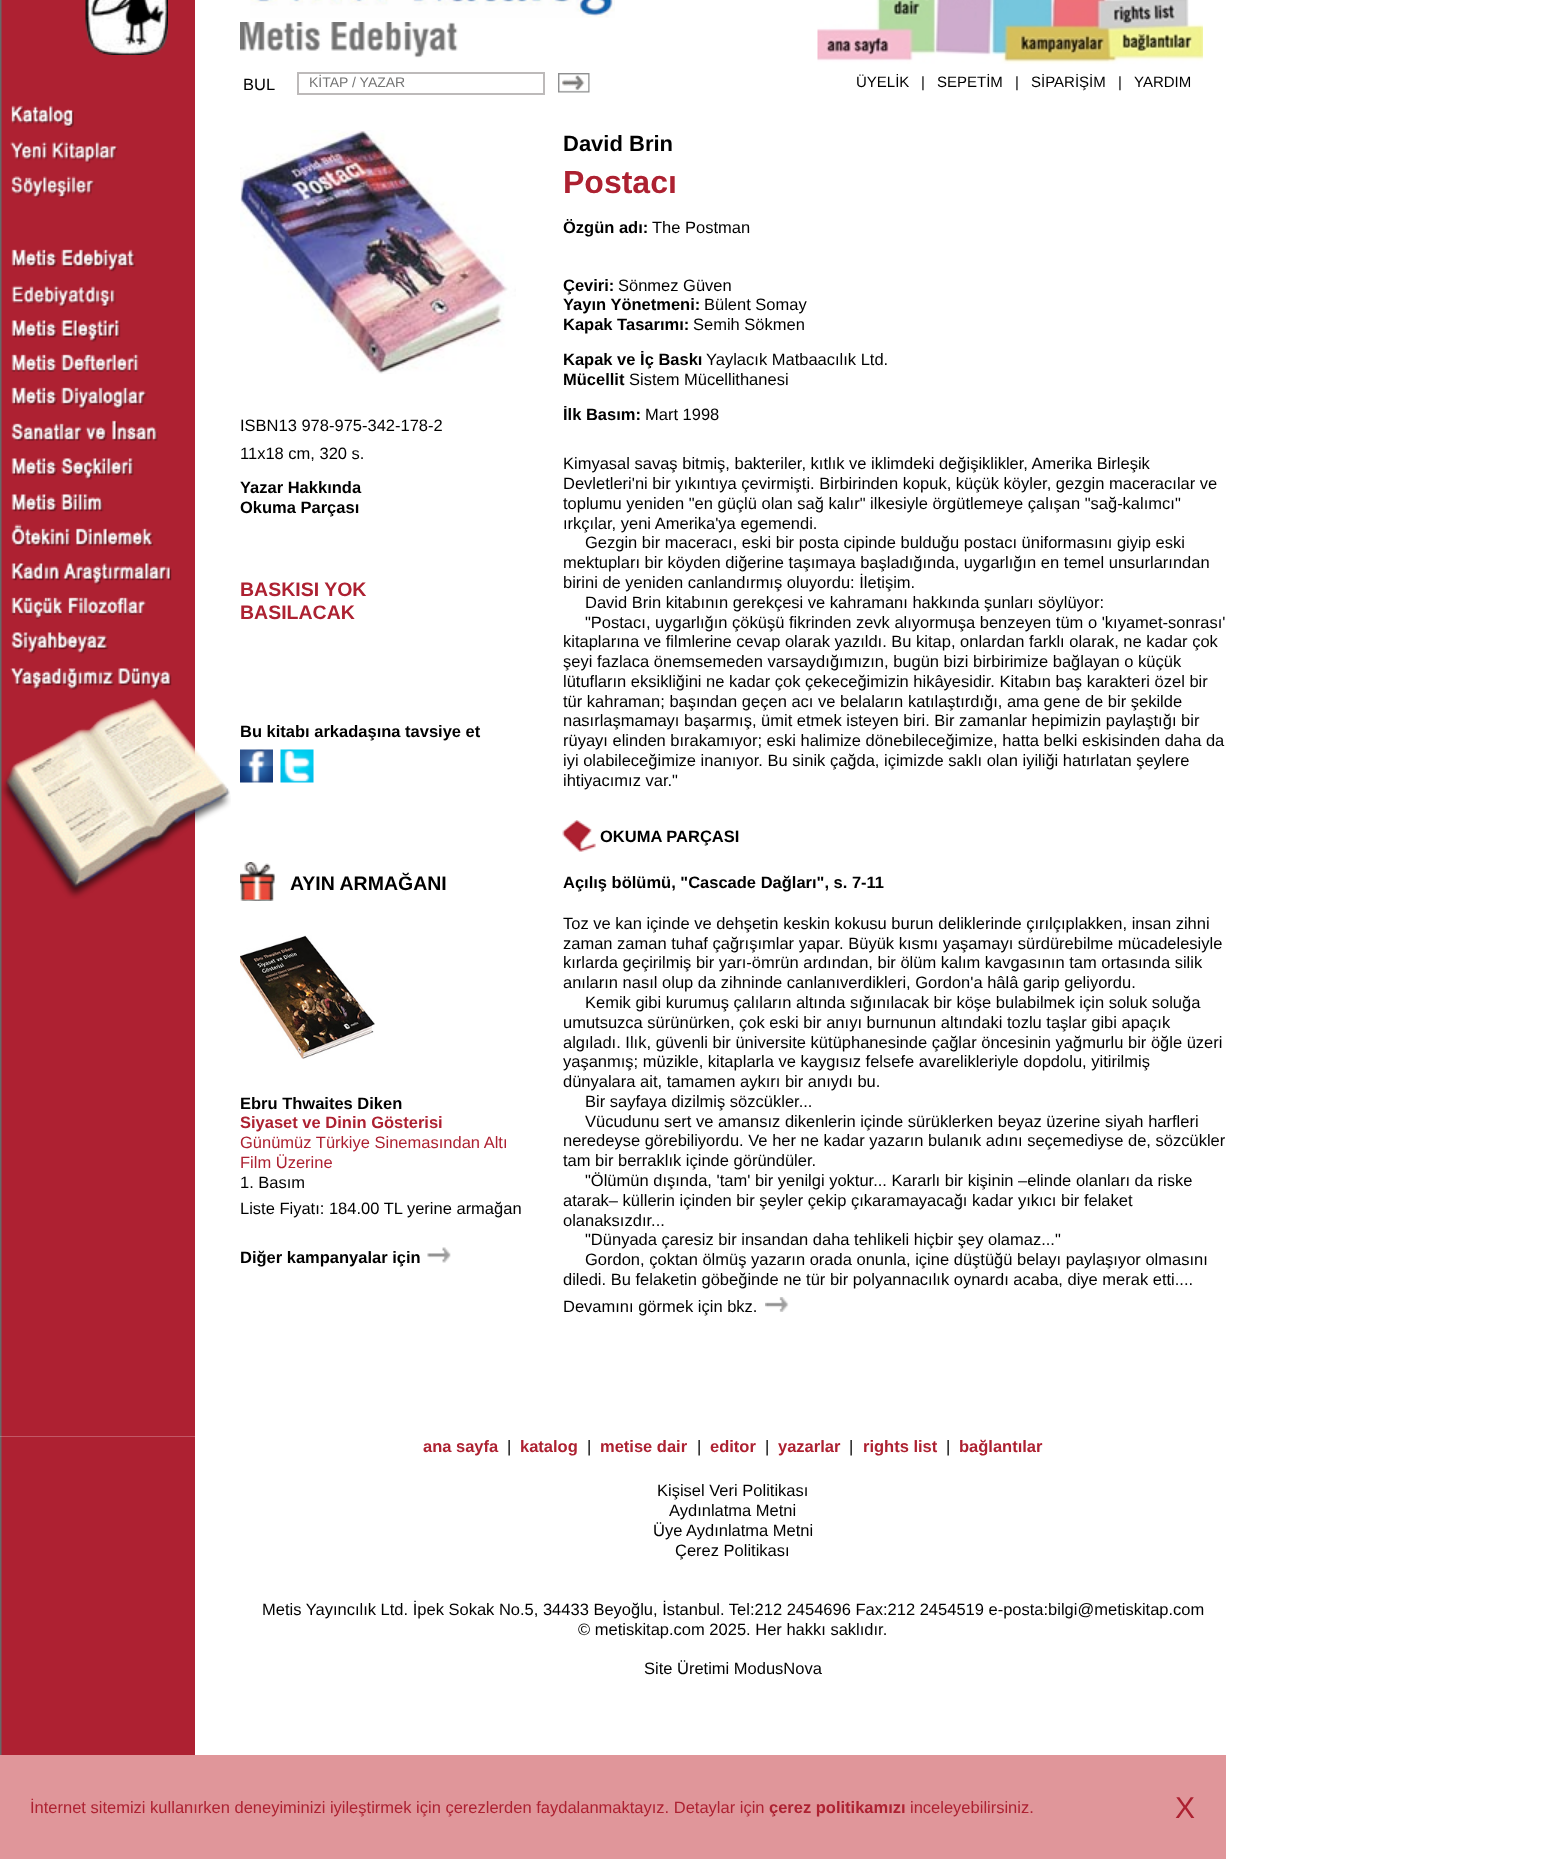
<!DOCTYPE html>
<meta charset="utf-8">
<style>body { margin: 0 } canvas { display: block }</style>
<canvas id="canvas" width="1563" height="1859"></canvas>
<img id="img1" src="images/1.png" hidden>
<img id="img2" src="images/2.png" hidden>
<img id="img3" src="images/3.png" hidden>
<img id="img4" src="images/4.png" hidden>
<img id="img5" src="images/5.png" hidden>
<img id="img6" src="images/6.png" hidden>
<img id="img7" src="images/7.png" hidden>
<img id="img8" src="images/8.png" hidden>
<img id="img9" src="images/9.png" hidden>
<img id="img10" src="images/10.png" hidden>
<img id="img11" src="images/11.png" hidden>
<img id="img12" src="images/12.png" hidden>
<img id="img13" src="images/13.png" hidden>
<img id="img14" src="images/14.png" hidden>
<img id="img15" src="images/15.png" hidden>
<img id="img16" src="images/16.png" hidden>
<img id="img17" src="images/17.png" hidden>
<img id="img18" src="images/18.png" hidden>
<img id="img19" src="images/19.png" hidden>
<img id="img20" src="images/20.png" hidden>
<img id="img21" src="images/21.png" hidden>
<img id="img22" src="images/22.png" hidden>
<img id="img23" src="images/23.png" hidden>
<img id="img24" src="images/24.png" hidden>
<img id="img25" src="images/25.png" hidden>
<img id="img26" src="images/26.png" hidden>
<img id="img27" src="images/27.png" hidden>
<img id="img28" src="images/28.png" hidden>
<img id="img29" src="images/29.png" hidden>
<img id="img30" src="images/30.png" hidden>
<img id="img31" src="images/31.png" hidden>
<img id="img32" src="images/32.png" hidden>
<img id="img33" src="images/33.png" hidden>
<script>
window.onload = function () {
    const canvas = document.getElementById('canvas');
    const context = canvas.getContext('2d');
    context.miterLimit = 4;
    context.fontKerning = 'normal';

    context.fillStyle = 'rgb(255, 255, 255)';
    context.fillRect(0, 0, 1563, 1859);
    context.drawImage(document.getElementById('img1'), 0, 0, 195, 100);
    context.drawImage(document.getElementById('img2'), 85, 0, 83, 55);
    context.drawImage(document.getElementById('img3'), 250, 0, 365, 18);
    context.drawImage(document.getElementById('img4'), 240, 22, 218, 36);
    context.drawImage(document.getElementById('img5'), 817, 0, 386, 64);
    context.strokeStyle = 'rgb(189, 186, 186)';
    context.lineWidth = 2;
    context.strokeRect(298, 73, 246, 21);
    context.drawImage(document.getElementById('img6'), 558, 73, 32, 20);
    context.drawImage(document.getElementById('img7'), 0, 100, 195, 1337);
    context.drawImage(document.getElementById('img8'), 11, 105, 63, 23);
    context.drawImage(document.getElementById('img9'), 10, 141, 108, 23);
    context.drawImage(document.getElementById('img10'), 11, 176, 84, 22);
    context.drawImage(document.getElementById('img11'), 11, 249, 125, 23);
    context.drawImage(document.getElementById('img12'), 11, 285, 105, 23);
    context.drawImage(document.getElementById('img13'), 11, 320, 110, 22);
    context.drawImage(document.getElementById('img14'), 11, 354, 128, 18);
    context.drawImage(document.getElementById('img15'), 11, 387, 136, 23);
    context.drawImage(document.getElementById('img16'), 11, 420, 147, 21);
    context.drawImage(document.getElementById('img17'), 11, 458, 123, 22);
    context.drawImage(document.getElementById('img18'), 11, 494, 93, 18);
    context.drawImage(document.getElementById('img19'), 11, 524, 143, 22);
    context.drawImage(document.getElementById('img20'), 11, 563, 161, 22);
    context.drawImage(document.getElementById('img21'), 11, 597, 135, 23);
    context.drawImage(document.getElementById('img22'), 11, 632, 98, 22);
    context.drawImage(document.getElementById('img23'), 10, 668, 162, 22);
    context.drawImage(document.getElementById('img24'), 1, 698, 230, 201);
    context.drawImage(document.getElementById('img25'), 240, 130, 276, 244);
    context.drawImage(document.getElementById('img26'), 240, 749, 33, 34);
    context.drawImage(document.getElementById('img27'), 280, 749, 34, 34);
    context.drawImage(document.getElementById('img28'), 240, 862, 35, 39);
    context.drawImage(document.getElementById('img29'), 240, 935, 135, 124);
    context.drawImage(document.getElementById('img30'), 427, 1247, 24, 16);
    context.drawImage(document.getElementById('img31'), 562, 820, 34, 32);
    context.drawImage(document.getElementById('img32'), 765, 1297, 24, 15);
    context.drawImage(document.getElementById('img33'), 0, 1436, 195, 319);
    context.fillStyle = 'rgb(224, 150, 154)';
    context.fillRect(0, 1755, 1226, 104);
    context.font = '16.5px Liberation Sans';
    context.fillStyle = 'rgb(0, 0, 0)';
    context.fillText('BUL', 243, 90);
    context.font = '14px Liberation Sans';
    context.fillStyle = 'rgb(117, 117, 117)';
    context.fillText('KİTAP / YAZAR', 309, 87);
    context.font = '15px Liberation Sans';
    context.fillStyle = 'rgb(0, 0, 0)';
    context.fillText('ÜYELİK', 856, 87);
    context.fillText('|', 921, 87);
    context.fillText('SEPETİM', 937, 87);
    context.fillText('|', 1015, 87);
    context.fillText('SİPARİŞİM', 1031, 87);
    context.fillText('|', 1118, 87);
    context.fillText('YARDIM', 1134, 87);
    context.font = '16.5px Liberation Sans';
    context.fillText('ISBN13 978-975-342-178-2', 240, 431);
    context.fillText('11x18 cm, 320 s.', 240, 459);
    context.font = 'bold 16.5px Liberation Sans';
    context.fillText('Yazar Hakkında', 240, 493);
    context.fillText('Okuma Parçası', 240, 513);
    context.font = 'bold 19.5px Liberation Sans';
    context.fillStyle = 'rgb(173, 33, 49)';
    context.fillText('BASKISI YOK', 240, 596);
    context.fillText('BASILACAK', 240, 619);
    context.font = 'bold 16.5px Liberation Sans';
    context.fillStyle = 'rgb(0, 0, 0)';
    context.fillText('Bu kitabı arkadaşına tavsiye et', 240, 737);
    context.font = 'bold 19.5px Liberation Sans';
    context.fillText('AYIN ARMAĞANI', 290, 890);
    context.font = 'bold 16.5px Liberation Sans';
    context.fillText('Ebru Thwaites Diken', 240, 1109);
    context.fillStyle = 'rgb(173, 33, 49)';
    context.fillText('Siyaset ve Dinin Gösterisi', 240, 1128);
    context.font = '16.5px Liberation Sans';
    context.fillText('Günümüz Türkiye Sinemasından Altı', 240, 1148);
    context.fillText('Film Üzerine', 240, 1168);
    context.fillStyle = 'rgb(0, 0, 0)';
    context.fillText('1. Basım', 240, 1188);
    context.fillText('Liste Fiyatı: 184.00 TL yerine armağan', 240, 1214);
    context.font = 'bold 16.5px Liberation Sans';
    context.fillText('Diğer kampanyalar için', 240, 1263);
    context.font = 'bold 22px Liberation Sans';
    context.fillText('David Brin', 563, 151);
    context.font = 'bold 32px Liberation Sans';
    context.fillStyle = 'rgb(173, 33, 49)';
    context.fillText('Postacı', 563, 193);
    context.font = 'bold 16.5px Liberation Sans';
    context.fillStyle = 'rgb(0, 0, 0)';
    context.fillText('Özgün adı:', 563, 233);
    context.font = '16.5px Liberation Sans';
    context.fillText('The Postman', 652, 233);
    context.font = 'bold 16.5px Liberation Sans';
    context.fillText('Çeviri:', 563, 291);
    context.font = '16.5px Liberation Sans';
    context.fillText('Sönmez Güven', 618, 291);
    context.font = 'bold 16.5px Liberation Sans';
    context.fillText('Yayın Yönetmeni:', 563, 310);
    context.font = '16.5px Liberation Sans';
    context.fillText('Bülent Somay', 704, 310);
    context.font = 'bold 16.5px Liberation Sans';
    context.fillText('Kapak Tasarımı:', 563, 330);
    context.font = '16.5px Liberation Sans';
    context.fillText('Semih Sökmen', 693, 330);
    context.font = 'bold 16.5px Liberation Sans';
    context.fillText('Kapak ve İç Baskı', 563, 365);
    context.font = '16.5px Liberation Sans';
    context.fillText('Yaylacık Matbaacılık Ltd.', 706, 365);
    context.font = 'bold 16.5px Liberation Sans';
    context.fillText('Mücellit', 563, 385);
    context.font = '16.5px Liberation Sans';
    context.fillText('Sistem Mücellithanesi', 629, 385);
    context.font = 'bold 16.5px Liberation Sans';
    context.fillText('İlk Basım:', 563, 420);
    context.font = '16.5px Liberation Sans';
    context.fillText('Mart 1998', 645, 420);
    context.fillText('Kimyasal savaş bitmiş, bakteriler, kıtlık ve iklimdeki değişiklikler, Amerika Birleşik', 563, 469);
    context.fillText('Devletleri\'ni bir yıkıntıya çevirmişti. Birbirinden kopuk, küçük köyler, gezgin maceracılar ve', 563, 489);
    context.fillText('toplumu yeniden "en güçlü olan sağ kalır" ilkesiyle örgütlemeye çalışan "sağ-kalımcı"', 563, 509);
    context.fillText('ırkçılar, yeni Amerika\'ya egemendi.', 563, 529);
    context.fillText('Gezgin bir maceracı, eski bir posta cipinde bulduğu postacı üniformasını giyip eski', 585, 548);
    context.fillText('mektupları bir köyden diğerine taşımaya başladığında, uygarlığın en temel unsurlarından', 563, 568);
    context.fillText('birini de yeniden canlandırmış oluyordu: İletişim.', 563, 588);
    context.fillText('David Brin kitabının gerekçesi ve kahramanı hakkında şunları söylüyor:', 585, 608);
    context.fillText('"Postacı, uygarlığın çöküşü fikrinden zevk alıyormuşa benzeyen tüm o \'kıyamet-sonrası\'', 585, 628);
    context.fillText('kitaplarına ve filmlerine cevap olarak yazıldı. Bu kitap, onlardan farklı olarak, ne kadar çok', 563, 647);
    context.fillText('şeyi fazlaca önemsemeden varsaydığımızın, bugün bizi birbirimize bağlayan o küçük', 563, 667);
    context.fillText('lütufların eksikliğini ne kadar çok çekeceğimizin hikâyesidir. Kitabın baş karakteri özel bir', 563, 687);
    context.fillText('tür kahraman; başından geçen acı ve belaların katılaştırdığı, ama gene de bir şekilde', 563, 707);
    context.fillText('nasırlaşmamayı başarmış, ümit etmek isteyen biri. Bir zamanlar hepimizin paylaştığı bir', 563, 726);
    context.fillText('rüyayı elinden bırakamıyor; eski halimize dönebileceğimize, hatta belki eskisinden daha da', 563, 746);
    context.fillText('iyi olabileceğimize inanıyor. Bu sinik çağda, içimizde saklı olan iyiliği hatırlatan şeylere', 563, 766);
    context.fillText('ihtiyacımız var."', 563, 786);
    context.font = 'bold 16.5px Liberation Sans';
    context.fillText('OKUMA PARÇASI', 600, 842);
    context.fillText('Açılış bölümü, "Cascade Dağları", s. 7-11', 563, 888);
    context.font = '16.5px Liberation Sans';
    context.fillText('Toz ve kan içinde ve dehşetin keskin kokusu burun deliklerinde çırılçıplakken, insan zihni', 563, 929);
    context.fillText('zaman zaman tuhaf çağrışımlar yapar. Büyük kısmı yaşamayı sürdürebilme mücadelesiyle', 563, 949);
    context.fillText('kırlarda geçirilmiş bir yarı-ömrün ardından, bir ölüm kalım kavgasının tam ortasında silik', 563, 968);
    context.fillText('anıların nasıl olup da zihninde canlanıverdikleri, Gordon\'a hâlâ garip geliyordu.', 563, 988);
    context.fillText('Kemik gibi kurumuş çalıların altında sığınılacak bir köşe bulabilmek için soluk soluğa', 585, 1008);
    context.fillText('umutsuzca sürünürken, çok eski bir anıyı burnunun altındaki tozlu taşlar gibi apaçık', 563, 1028);
    context.fillText('algıladı. Ilık, güvenli bir üniversite kütüphanesinde çağlar öncesinin yağmurlu bir öğle üzeri', 563, 1048);
    context.fillText('yaşanmış; müzikle, kitaplarla ve kaygısız felsefe avarelikleriyle dopdolu, yitirilmiş', 563, 1067);
    context.fillText('dünyalara ait, tamamen aykırı bir anıydı bu.', 563, 1087);
    context.fillText('Bir sayfaya dizilmiş sözcükler...', 585, 1107);
    context.fillText('Vücudunu sert ve amansız dikenlerin içinde sürüklerken beyaz üzerine siyah harfleri', 585, 1127);
    context.fillText('neredeyse görebiliyordu. Ve her ne kadar yazarın bulanık adını seçemediyse de, sözcükler', 563, 1146);
    context.fillText('tam bir berraklık içinde göründüler.', 563, 1166);
    context.fillText('"Ölümün dışında, \'tam\' bir yenilgi yoktur... Kararlı bir kişinin –elinde olanları da riske', 585, 1186);
    context.fillText('atarak– küllerin içinden bir şeyler çekip çıkaramayacağı kadar yıkıcı bir felaket', 563, 1206);
    context.fillText('olanaksızdır...', 563, 1226);
    context.fillText('"Dünyada çaresiz bir insandan daha tehlikeli hiçbir şey olamaz..."', 585, 1245);
    context.fillText('Gordon, çoktan ölmüş yazarın orada onunla, içine düştüğü belayı paylaşıyor olmasını', 585, 1265);
    context.fillText('diledi. Bu felaketin göbeğinde ne tür bir polyannacılık oynardı acaba, diye merak etti....', 563, 1285);
    context.fillText('Devamını görmek için bkz.', 563, 1312);
    context.font = 'bold 16.5px Liberation Sans';
    context.fillStyle = 'rgb(173, 33, 49)';
    context.fillText('ana sayfa', 423, 1452);
    context.font = '16.5px Liberation Sans';
    context.fillStyle = 'rgb(0, 0, 0)';
    context.fillText('|', 507, 1452);
    context.font = 'bold 16.5px Liberation Sans';
    context.fillStyle = 'rgb(173, 33, 49)';
    context.fillText('katalog', 520, 1452);
    context.font = '16.5px Liberation Sans';
    context.fillStyle = 'rgb(0, 0, 0)';
    context.fillText('|', 587, 1452);
    context.font = 'bold 16.5px Liberation Sans';
    context.fillStyle = 'rgb(173, 33, 49)';
    context.fillText('metise dair', 600, 1452);
    context.font = '16.5px Liberation Sans';
    context.fillStyle = 'rgb(0, 0, 0)';
    context.fillText('|', 697, 1452);
    context.font = 'bold 16.5px Liberation Sans';
    context.fillStyle = 'rgb(173, 33, 49)';
    context.fillText('editor', 710, 1452);
    context.font = '16.5px Liberation Sans';
    context.fillStyle = 'rgb(0, 0, 0)';
    context.fillText('|', 765, 1452);
    context.font = 'bold 16.5px Liberation Sans';
    context.fillStyle = 'rgb(173, 33, 49)';
    context.fillText('yazarlar', 778, 1452);
    context.font = '16.5px Liberation Sans';
    context.fillStyle = 'rgb(0, 0, 0)';
    context.fillText('|', 849, 1452);
    context.font = 'bold 16.5px Liberation Sans';
    context.fillStyle = 'rgb(173, 33, 49)';
    context.fillText('rights list', 863, 1452);
    context.font = '16.5px Liberation Sans';
    context.fillStyle = 'rgb(0, 0, 0)';
    context.fillText('|', 946, 1452);
    context.font = 'bold 16.5px Liberation Sans';
    context.fillStyle = 'rgb(173, 33, 49)';
    context.fillText('bağlantılar', 959, 1452);
    context.font = '16.5px Liberation Sans';
    context.fillStyle = 'rgb(0, 0, 0)';
    context.fillText('Kişisel Veri Politikası', 657, 1496);
    context.fillText('Aydınlatma Metni', 669, 1516);
    context.fillText('Üye Aydınlatma Metni', 653, 1536);
    context.fillText('Çerez Politikası', 675, 1556);
    context.fillText('Metis Yayıncılık Ltd. İpek Sokak No.5, 34433 Beyoğlu, İstanbul. Tel:212 2454696 Fax:212 2454519 e-posta:bilgi@metiskitap.com', 262, 1615);
    context.fillText('© metiskitap.com 2025. Her hakkı saklıdır.', 578, 1635);
    context.fillText('Site Üretimi ModusNova', 644, 1674);
    context.fillStyle = 'rgb(173, 33, 49)';
    context.fillText('İnternet sitemizi kullanırken deneyiminizi iyileştirmek için çerezlerden faydalanmaktayız. Detaylar için', 30, 1813);
    context.font = 'bold 16.5px Liberation Sans';
    context.fillText('çerez politikamızı', 769, 1813);
    context.font = '16.5px Liberation Sans';
    context.fillText('inceleyebilirsiniz.', 910, 1813);
    context.font = '30px Liberation Sans';
    context.fillText('X', 1175, 1818);
};
</script>
